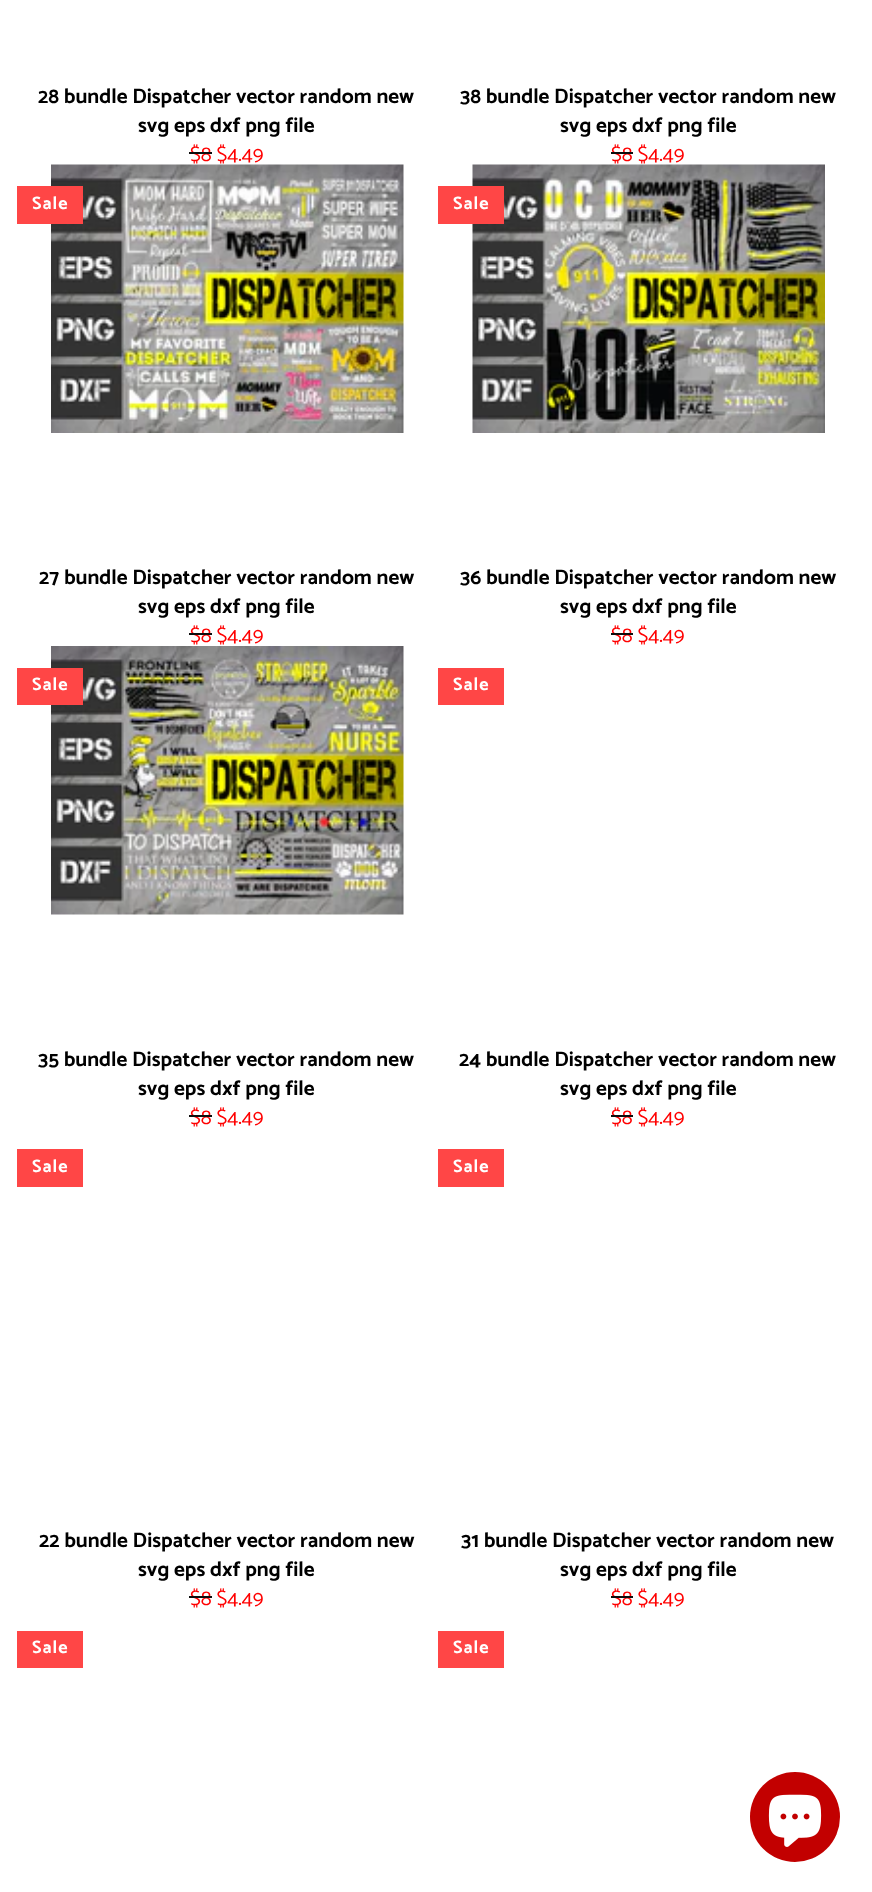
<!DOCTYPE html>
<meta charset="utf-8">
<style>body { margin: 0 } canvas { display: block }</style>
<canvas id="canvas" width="872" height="1892"></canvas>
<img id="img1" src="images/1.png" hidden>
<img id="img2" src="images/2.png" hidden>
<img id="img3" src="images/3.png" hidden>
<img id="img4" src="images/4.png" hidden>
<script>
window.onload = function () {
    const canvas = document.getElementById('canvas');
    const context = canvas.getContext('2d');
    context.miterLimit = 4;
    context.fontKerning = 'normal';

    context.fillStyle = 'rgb(255, 255, 255)';
    context.fillRect(0, 0, 872, 1892);
    context.drawImage(document.getElementById('img1'), 51, 164, 353, 269);
    context.fillStyle = 'rgb(255, 70, 70)';
    context.fillRect(17, 186, 66, 38);
    context.drawImage(document.getElementById('img2'), 472, 164, 353, 269);
    context.fillRect(438, 186, 66, 38);
    context.drawImage(document.getElementById('img3'), 51, 646, 353, 269);
    context.fillRect(17, 668, 66, 37);
    context.fillRect(438, 668, 66, 37);
    context.fillRect(17, 1149, 66, 38);
    context.fillRect(438, 1149, 66, 38);
    context.fillRect(17, 1631, 66, 37);
    context.fillRect(438, 1631, 66, 37);
    context.fillStyle = 'rgb(194, 0, 0)';
    context.beginPath();
    context.arc(795, 1817, 45, 0, 2 * Math.PI);
    context.fill();
    context.drawImage(document.getElementById('img4'), 768, 1794, 54, 53);
    context.font = 'bold 21px Catamaran';
    context.fillStyle = 'rgb(0, 0, 0)';
    context.fillText('28 bundle Dispatcher vector random new', 38, 103);
    context.fillText('svg eps dxf png file', 138, 132);
    context.font = '21px Catamaran';
    context.fillStyle = 'rgb(255, 0, 0)';
    context.fillText('$8 $4.49', 190, 161);
    context.fillStyle = 'rgb(13, 13, 13)';
    context.fillRect(189, 152, 23, 2);
    context.font = 'bold 21px Catamaran';
    context.fillStyle = 'rgb(0, 0, 0)';
    context.fillText('38 bundle Dispatcher vector random new', 460, 103);
    context.fillText('svg eps dxf png file', 560, 132);
    context.font = '21px Catamaran';
    context.fillStyle = 'rgb(255, 0, 0)';
    context.fillText('$8 $4.49', 611, 161);
    context.fillStyle = 'rgb(13, 13, 13)';
    context.fillRect(611, 152, 22, 2);
    context.letterSpacing = '1px';
    context.font = 'bold 18px Catamaran';
    context.fillStyle = 'rgb(255, 255, 255)';
    context.fillText('Sale', 32, 209);
    context.letterSpacing = '0px';
    context.font = 'bold 21px Catamaran';
    context.fillStyle = 'rgb(0, 0, 0)';
    context.fillText('27 bundle Dispatcher vector random new', 39, 584);
    context.fillText('svg eps dxf png file', 138, 613);
    context.font = '21px Catamaran';
    context.fillStyle = 'rgb(255, 0, 0)';
    context.fillText('$8 $4.49', 190, 642);
    context.fillStyle = 'rgb(13, 13, 13)';
    context.fillRect(189, 633, 23, 2);
    context.letterSpacing = '1px';
    context.font = 'bold 18px Catamaran';
    context.fillStyle = 'rgb(255, 255, 255)';
    context.fillText('Sale', 453, 209);
    context.letterSpacing = '0px';
    context.font = 'bold 21px Catamaran';
    context.fillStyle = 'rgb(0, 0, 0)';
    context.fillText('36 bundle Dispatcher vector random new', 460, 584);
    context.fillText('svg eps dxf png file', 560, 613);
    context.font = '21px Catamaran';
    context.fillStyle = 'rgb(255, 0, 0)';
    context.fillText('$8 $4.49', 611, 642);
    context.fillStyle = 'rgb(13, 13, 13)';
    context.fillRect(611, 633, 22, 2);
    context.letterSpacing = '1px';
    context.font = 'bold 18px Catamaran';
    context.fillStyle = 'rgb(255, 255, 255)';
    context.fillText('Sale', 32, 690);
    context.letterSpacing = '0px';
    context.font = 'bold 21px Catamaran';
    context.fillStyle = 'rgb(0, 0, 0)';
    context.fillText('35 bundle Dispatcher vector random new', 38, 1066);
    context.fillText('svg eps dxf png file', 138, 1095);
    context.font = '21px Catamaran';
    context.fillStyle = 'rgb(255, 0, 0)';
    context.fillText('$8 $4.49', 190, 1124);
    context.fillStyle = 'rgb(13, 13, 13)';
    context.fillRect(189, 1115, 23, 2);
    context.letterSpacing = '1px';
    context.font = 'bold 18px Catamaran';
    context.fillStyle = 'rgb(255, 255, 255)';
    context.fillText('Sale', 453, 690);
    context.letterSpacing = '0px';
    context.font = 'bold 21px Catamaran';
    context.fillStyle = 'rgb(0, 0, 0)';
    context.fillText('24 bundle Dispatcher vector random new', 459, 1066);
    context.fillText('svg eps dxf png file', 560, 1095);
    context.font = '21px Catamaran';
    context.fillStyle = 'rgb(255, 0, 0)';
    context.fillText('$8 $4.49', 611, 1124);
    context.fillStyle = 'rgb(13, 13, 13)';
    context.fillRect(611, 1115, 22, 2);
    context.letterSpacing = '1px';
    context.font = 'bold 18px Catamaran';
    context.fillStyle = 'rgb(255, 255, 255)';
    context.fillText('Sale', 32, 1172);
    context.letterSpacing = '0px';
    context.font = 'bold 21px Catamaran';
    context.fillStyle = 'rgb(0, 0, 0)';
    context.fillText('22 bundle Dispatcher vector random new', 39, 1547);
    context.fillText('svg eps dxf png file', 138, 1576);
    context.font = '21px Catamaran';
    context.fillStyle = 'rgb(255, 0, 0)';
    context.fillText('$8 $4.49', 190, 1605);
    context.fillStyle = 'rgb(13, 13, 13)';
    context.fillRect(189, 1596, 23, 2);
    context.letterSpacing = '1px';
    context.font = 'bold 18px Catamaran';
    context.fillStyle = 'rgb(255, 255, 255)';
    context.fillText('Sale', 453, 1172);
    context.letterSpacing = '0px';
    context.font = 'bold 21px Catamaran';
    context.fillStyle = 'rgb(0, 0, 0)';
    context.fillText('31 bundle Dispatcher vector random new', 461, 1547);
    context.fillText('svg eps dxf png file', 560, 1576);
    context.font = '21px Catamaran';
    context.fillStyle = 'rgb(255, 0, 0)';
    context.fillText('$8 $4.49', 611, 1605);
    context.fillStyle = 'rgb(13, 13, 13)';
    context.fillRect(611, 1596, 22, 2);
    context.letterSpacing = '1px';
    context.font = 'bold 18px Catamaran';
    context.fillStyle = 'rgb(255, 255, 255)';
    context.fillText('Sale', 32, 1653);
    context.fillText('Sale', 453, 1653);
};
</script>
